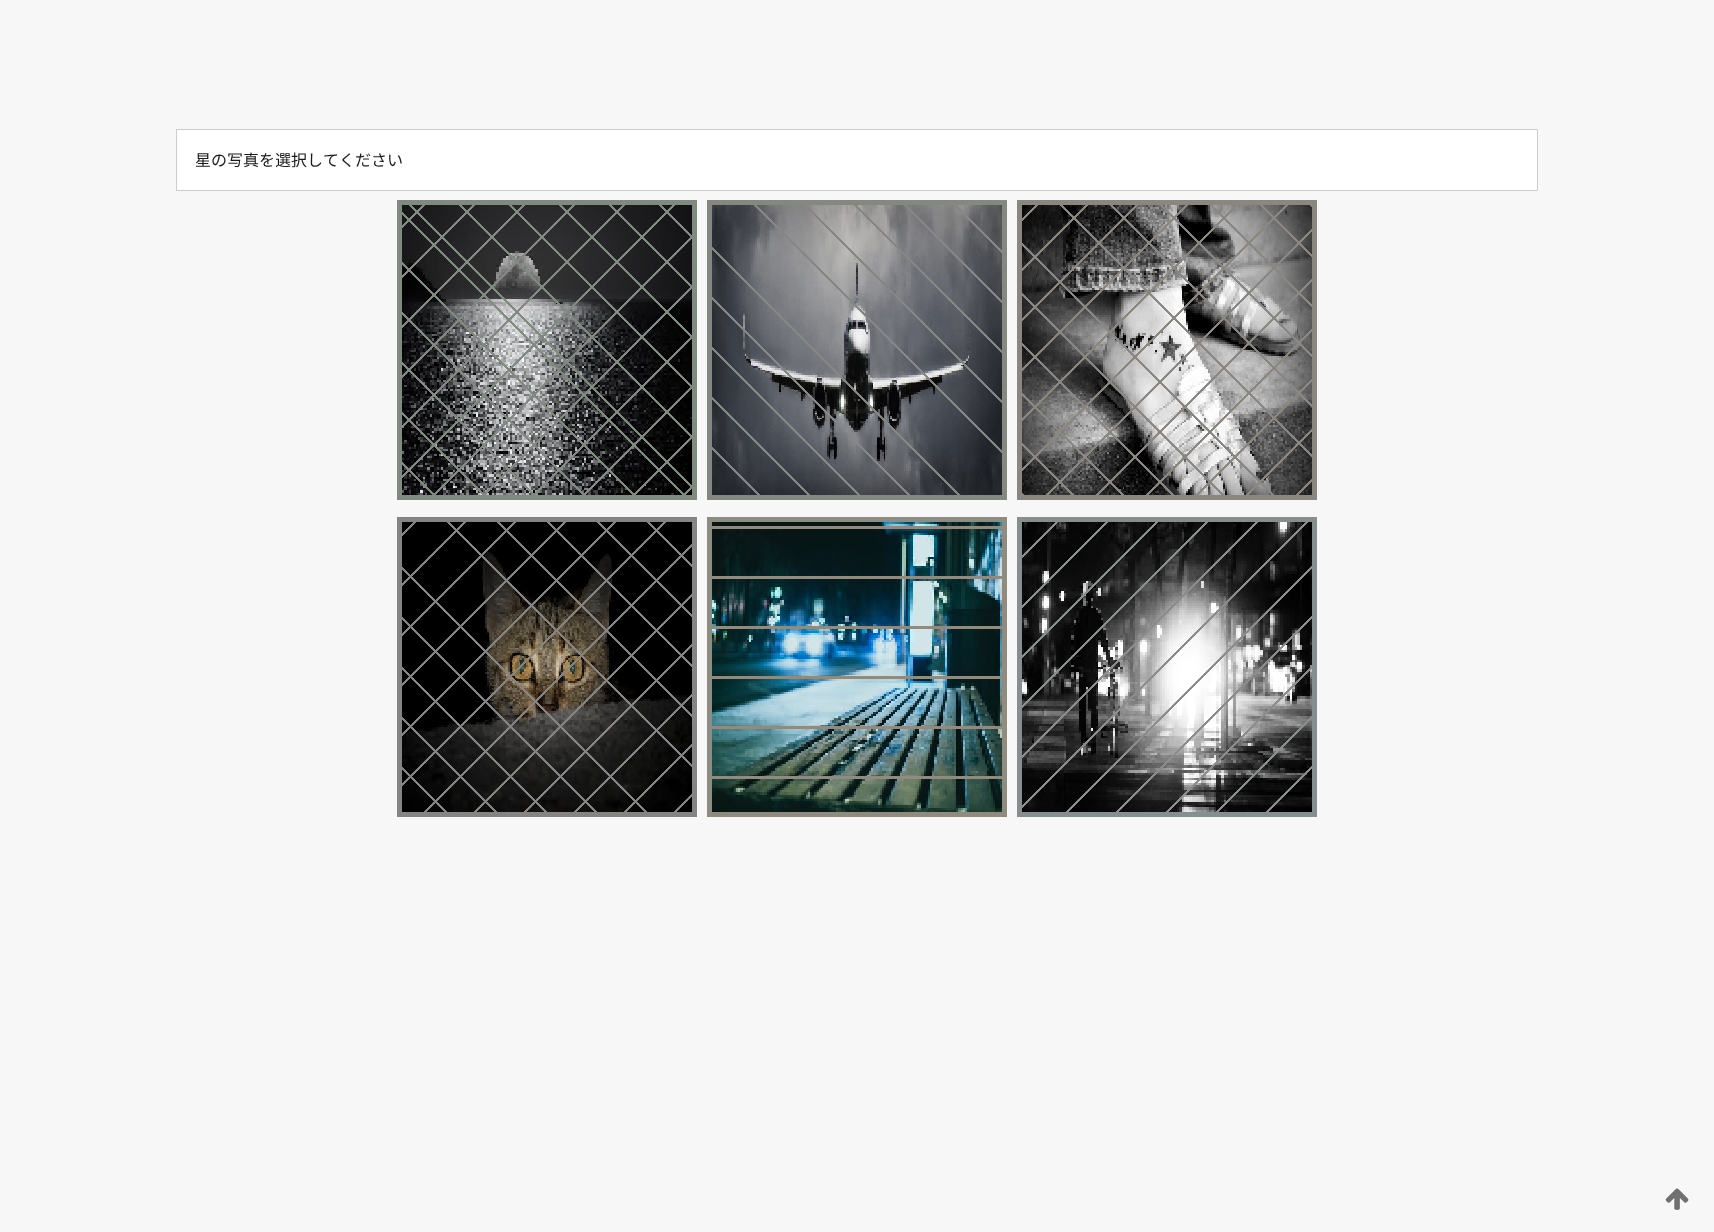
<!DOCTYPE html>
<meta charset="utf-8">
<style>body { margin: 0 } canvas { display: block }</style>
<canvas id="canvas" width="1714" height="1232"></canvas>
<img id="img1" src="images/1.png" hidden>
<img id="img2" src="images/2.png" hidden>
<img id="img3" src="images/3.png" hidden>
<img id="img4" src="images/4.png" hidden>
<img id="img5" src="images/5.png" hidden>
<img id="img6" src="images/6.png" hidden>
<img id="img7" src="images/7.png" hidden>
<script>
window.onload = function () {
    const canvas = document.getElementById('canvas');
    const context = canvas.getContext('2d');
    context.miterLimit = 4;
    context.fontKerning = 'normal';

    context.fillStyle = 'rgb(247, 247, 247)';
    context.fillRect(0, 0, 1714, 1232);
    context.fillStyle = 'rgb(255, 255, 255)';
    context.beginPath();
    context.rect(176.5, 129.5, 1361, 61);
    context.fill();
    context.strokeStyle = 'rgb(204, 204, 204)';
    context.stroke();
    context.drawImage(document.getElementById('img1'), 397, 200, 300, 300);
    context.drawImage(document.getElementById('img2'), 707, 200, 300, 300);
    context.drawImage(document.getElementById('img3'), 1017, 200, 300, 300);
    context.drawImage(document.getElementById('img4'), 397, 517, 300, 300);
    context.drawImage(document.getElementById('img5'), 707, 517, 300, 300);
    context.drawImage(document.getElementById('img6'), 1017, 517, 300, 300);
    context.drawImage(document.getElementById('img7'), 1665, 1188, 24, 22);
    context.font = '100 16px Noto Sans SC';
    context.fillStyle = 'rgb(26, 26, 26)';
    context.fillText('星の写真を選択してください', 195, 166);
};
</script>
